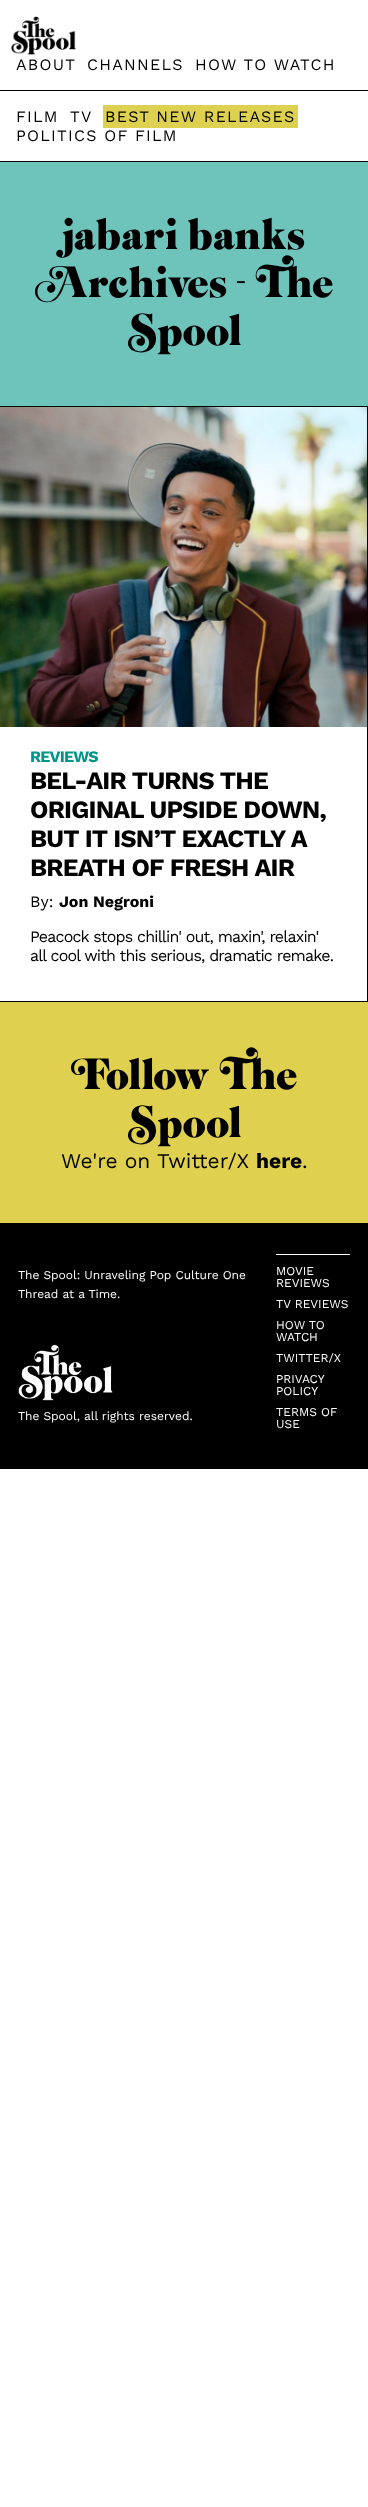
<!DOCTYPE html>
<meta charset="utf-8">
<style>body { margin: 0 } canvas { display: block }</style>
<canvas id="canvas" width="368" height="2507"></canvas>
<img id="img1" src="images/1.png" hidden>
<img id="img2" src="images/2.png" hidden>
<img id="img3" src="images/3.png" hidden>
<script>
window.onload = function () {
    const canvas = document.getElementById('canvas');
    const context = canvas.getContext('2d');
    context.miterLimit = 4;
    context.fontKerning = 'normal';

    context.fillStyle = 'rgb(255, 255, 255)';
    context.fillRect(0, 0, 368, 2507);
    context.fillStyle = 'rgb(0, 0, 0)';
    context.fillRect(0, 90, 368, 1);
    context.drawImage(document.getElementById('img1'), 11, 16, 65, 39);
    context.fillRect(0, 161, 368, 1);
    context.fillStyle = 'rgb(222, 208, 80)';
    context.fillRect(103, 105, 195, 23);
    context.fillStyle = 'rgb(110, 195, 187)';
    context.fillRect(0, 162, 368, 244);
    context.fillStyle = 'rgb(0, 0, 0)';
    context.fillRect(0, 406, 368, 1);
    context.fillRect(367, 407, 1, 595);
    context.fillRect(0, 1001, 368, 1);
    context.drawImage(document.getElementById('img2'), 0, 407, 367, 320);
    context.fillStyle = 'rgb(223, 208, 79)';
    context.fillRect(0, 1002, 368, 221);
    context.fillStyle = 'rgb(0, 0, 0)';
    context.fillRect(0, 1223, 368, 246);
    context.drawImage(document.getElementById('img3'), 18, 1344, 95, 57);
    context.fillStyle = 'rgb(255, 255, 255)';
    context.fillRect(276, 1254, 74, 1);
    context.letterSpacing = '1.25px';
    context.font = '16px Work Sans';
    context.fillStyle = 'rgb(0, 0, 0)';
    context.fillText('ABOUT', 16, 70);
    context.fillText('CHANNELS', 87, 70);
    context.fillText('HOW TO WATCH', 195, 70);
    context.fillText('FILM', 16, 122);
    context.fillText('TV', 70, 122);
    context.fillText('BEST NEW RELEASES', 105, 122);
    context.fillText('POLITICS OF FILM', 16, 141);
    context.letterSpacing = '0px';
    context.wordSpacing = '-7px';
    context.font = '58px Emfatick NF';
    context.fillText('jabari banks', 62, 249);
    context.fillText('Archives - The', 34, 297);
    context.wordSpacing = '0px';
    context.fillText('Spool', 127, 345);
    context.letterSpacing = '-0.8px';
    context.font = 'bold 16px Work Sans';
    context.fillStyle = 'rgb(0, 150, 136)';
    context.fillText('REVIEWS', 30, 762);
    context.font = 'bold 25px Work Sans';
    context.fillStyle = 'rgb(0, 0, 0)';
    context.fillText('BEL-AIR TURNS THE', 30, 789);
    context.fillText('ORIGINAL UPSIDE DOWN,', 30, 818);
    context.fillText('BUT IT ISN’T EXACTLY A', 30, 847);
    context.fillText('BREATH OF FRESH AIR', 30, 876);
    context.letterSpacing = '0px';
    context.font = '16px Work Sans';
    context.fillText('By:', 30, 907);
    context.font = 'bold 16px Work Sans';
    context.fillText('Jon Negroni', 59, 907);
    context.letterSpacing = '-0.8px';
    context.font = '16px Work Sans';
    context.fillText('Peacock stops chillin\' out, maxin\', relaxin\'', 30, 942);
    context.fillText('all cool with this serious, dramatic remake.', 30, 961);
    context.letterSpacing = '0px';
    context.wordSpacing = '-7px';
    context.font = '58px Emfatick NF';
    context.fillText('Follow The', 70, 1089);
    context.wordSpacing = '0px';
    context.fillText('Spool', 127, 1137);
    context.font = '21px Work Sans';
    context.fillText('We\'re on Twitter/X', 61, 1168);
    context.font = 'bold 21px Work Sans';
    context.fillText('here', 256, 1168);
    context.font = '21px Work Sans';
    context.fillText('.', 302, 1168);
    context.font = '12px Work Sans';
    context.fillStyle = 'rgb(255, 255, 255)';
    context.fillText('The Spool: Unraveling Pop Culture One', 18, 1279);
    context.fillText('Thread at a Time.', 18, 1298);
    context.fillText('The Spool, all rights reserved.', 18, 1420);
    context.fillText('MOVIE', 276, 1275);
    context.fillText('REVIEWS', 276, 1287);
    context.fillText('TV REVIEWS', 276, 1308);
    context.fillText('HOW TO', 276, 1329);
    context.fillText('WATCH', 276, 1341);
    context.fillText('TWITTER/X', 276, 1362);
    context.fillText('PRIVACY', 276, 1383);
    context.fillText('POLICY', 276, 1395);
    context.fillText('TERMS OF', 276, 1416);
    context.fillText('USE', 276, 1428);
};
</script>
